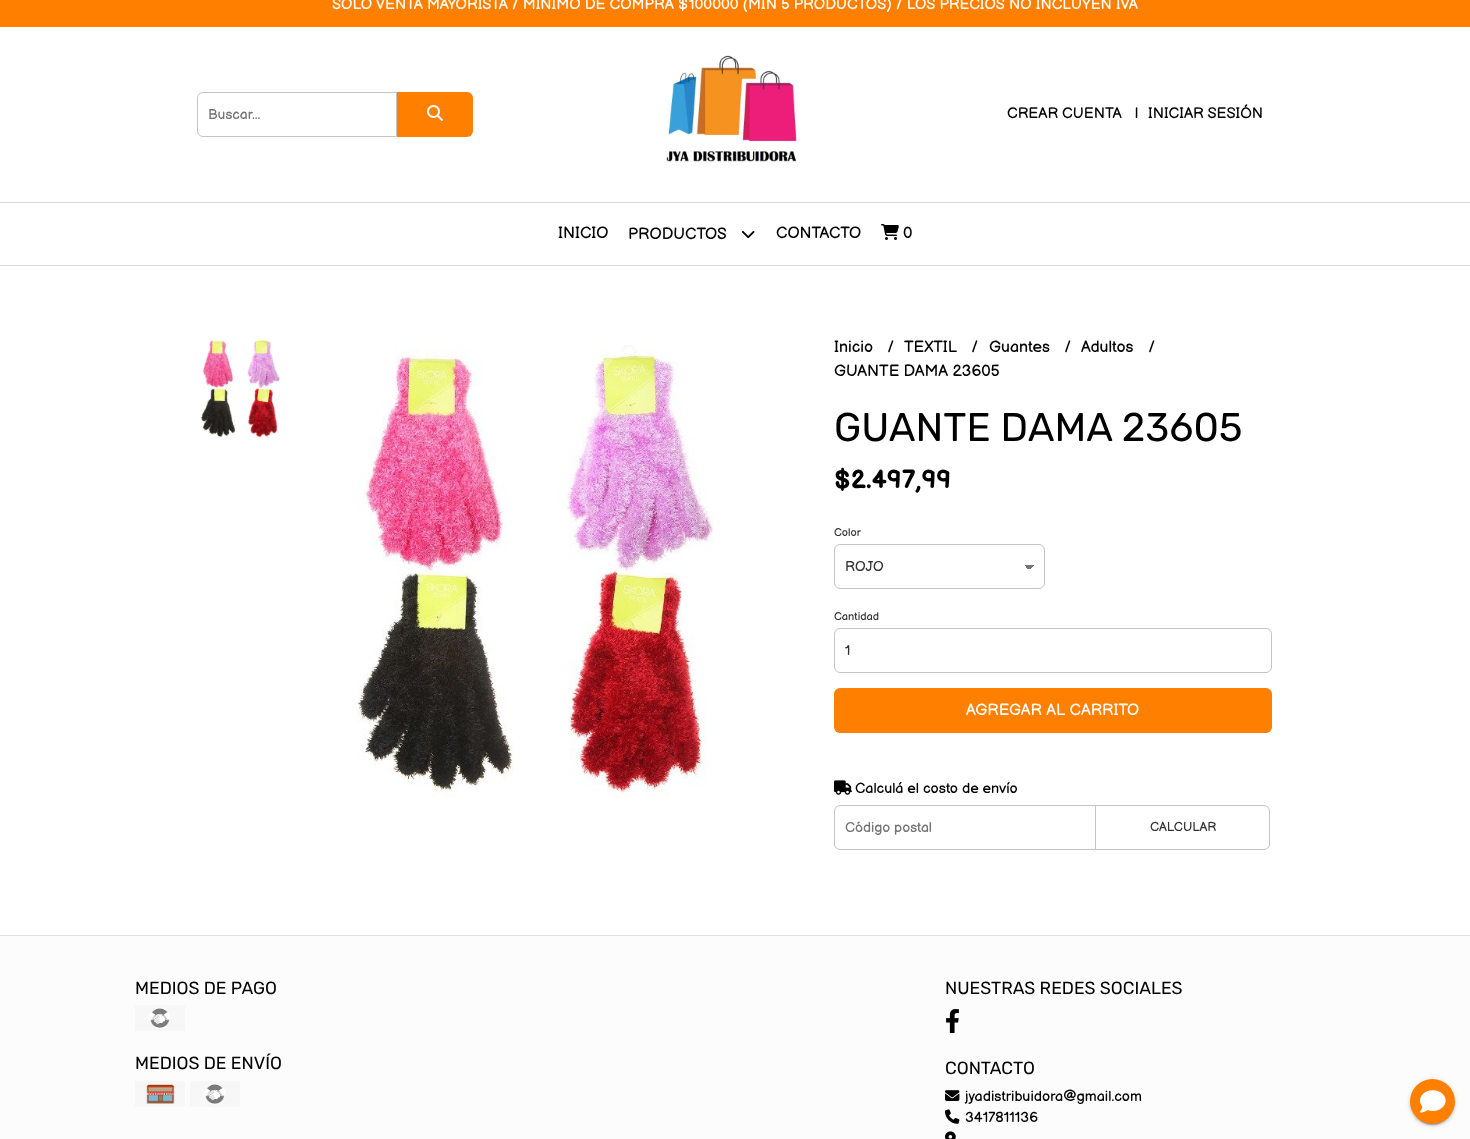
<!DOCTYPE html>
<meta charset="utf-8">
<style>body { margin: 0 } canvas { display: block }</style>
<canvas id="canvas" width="1470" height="1139"></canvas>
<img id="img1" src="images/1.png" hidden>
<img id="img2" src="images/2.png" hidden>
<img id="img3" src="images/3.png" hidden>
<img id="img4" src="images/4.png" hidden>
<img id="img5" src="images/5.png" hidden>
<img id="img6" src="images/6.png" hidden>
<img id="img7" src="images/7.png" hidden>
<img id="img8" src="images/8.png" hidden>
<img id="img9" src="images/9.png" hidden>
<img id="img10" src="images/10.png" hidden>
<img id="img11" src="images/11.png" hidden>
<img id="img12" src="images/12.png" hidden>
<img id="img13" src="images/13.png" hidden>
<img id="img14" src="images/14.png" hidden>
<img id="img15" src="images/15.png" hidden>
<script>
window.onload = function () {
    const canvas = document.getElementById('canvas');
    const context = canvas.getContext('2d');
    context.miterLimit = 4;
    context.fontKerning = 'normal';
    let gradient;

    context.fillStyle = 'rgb(255, 255, 255)';
    context.fillRect(0, 0, 1470, 1139);
    context.fillStyle = 'rgb(255, 127, 0)';
    context.fillRect(0, 0, 1470, 27);
    context.beginPath();
    context.roundRect(197.5, 92.5, 199, 44, [5.5, 0, 0, 5.5]);
    context.strokeStyle = 'rgb(196, 196, 196)';
    context.stroke();
    context.beginPath();
    context.roundRect(397, 92, 76, 45, [0, 6, 6, 0]);
    context.fill();
    context.drawImage(document.getElementById('img1'), 427, 105, 16, 16);
    context.drawImage(document.getElementById('img2'), 666, 55, 132, 110);
    context.fillStyle = 'rgb(217, 217, 217)';
    context.fillRect(0, 202, 1470, 1);
    context.fillRect(0, 265, 1470, 1);
    context.drawImage(document.getElementById('img3'), 741, 230, 14, 9);
    context.drawImage(document.getElementById('img4'), 881, 224, 18, 16);
    context.drawImage(document.getElementById('img5'), 201, 338, 79, 100);
    context.drawImage(document.getElementById('img6'), 357, 345, 357, 453);
    gradient = context.createLinearGradient(1029, 565, 1034, 570);
    gradient.addColorStop(0.5, 'rgb(117, 117, 117)');
    gradient.addColorStop(0.5, 'rgb(255, 255, 255)');
    context.fillStyle = gradient;
    context.fillRect(1029, 565, 5, 4);
    gradient = context.createLinearGradient(1024, 570, 1029, 565);
    gradient.addColorStop(0.5, 'rgb(255, 255, 255)');
    gradient.addColorStop(0.5, 'rgb(117, 117, 117)');
    context.fillStyle = gradient;
    context.fillRect(1024, 565, 5, 4);
    context.beginPath();
    context.roundRect(834.5, 544.5, 210, 44, 5.5);
    context.stroke();
    context.beginPath();
    context.roundRect(834.5, 628.5, 437, 44, 5.5);
    context.stroke();
    context.fillStyle = 'rgb(255, 127, 0)';
    context.beginPath();
    context.roundRect(834, 688, 438, 45, 6);
    context.fill();
    context.drawImage(document.getElementById('img7'), 834, 780, 18, 15);
    context.beginPath();
    context.roundRect(834.5, 805.5, 261, 44, [5.5, 0, 0, 5.5]);
    context.stroke();
    context.fillStyle = 'rgb(255, 255, 255)';
    context.beginPath();
    context.roundRect(1095.5, 805.5, 174, 44, [0, 5.5, 5.5, 0]);
    context.fill();
    context.stroke();
    context.fillStyle = 'rgb(252, 252, 252)';
    context.fillRect(0, 936, 1470, 203);
    context.fillStyle = 'rgb(227, 227, 227)';
    context.fillRect(0, 935, 1470, 1);
    context.drawImage(document.getElementById('img8'), 135, 1005, 50, 26);
    context.drawImage(document.getElementById('img9'), 135, 1081, 50, 26);
    context.drawImage(document.getElementById('img10'), 190, 1081, 50, 26);
    context.drawImage(document.getElementById('img11'), 946, 1009, 13, 24);
    context.drawImage(document.getElementById('img12'), 945, 1090, 15, 11);
    context.drawImage(document.getElementById('img13'), 945, 1109, 15, 15);
    context.drawImage(document.getElementById('img14'), 945, 1131, 11, 8);
    context.fillStyle = 'rgba(0, 0, 0, 0.2)';
    context.filter = 'blur(0.5px)';
    context.beginPath();
    context.roundRect(1412, 1084, 41, 41, 20.5);
    context.fill();
    context.filter = 'none';
    context.fillStyle = 'rgba(0, 0, 0, 0.12)';
    context.filter = 'blur(2.5px)';
    context.beginPath();
    context.roundRect(1410, 1080, 45, 45, 22.5);
    context.fill();
    context.filter = 'none';
    context.fillStyle = 'rgba(0, 0, 0, 0.14)';
    context.filter = 'blur(1px)';
    context.beginPath();
    context.roundRect(1410, 1081, 45, 45, 22.5);
    context.fill();
    context.filter = 'none';
    context.fillStyle = 'rgb(255, 127, 0)';
    context.beginPath();
    context.arc(1432.5, 1101.5, 22.5, 0, 2 * Math.PI);
    context.fill();
    context.drawImage(document.getElementById('img15'), 1420, 1090, 26, 23);
    context.font = '15px Balsamiq Sans';
    context.fillStyle = 'rgb(255, 255, 255)';
    context.fillText('SOLO VENTA MAYORISTA / MINIMO DE COMPRA $100000 (MIN 5 PRODUCTOS) / LOS PRECIOS NO INCLUYEN IVA', 332, 9);
    context.font = '14px Balsamiq Sans';
    context.fillStyle = 'rgb(117, 117, 117)';
    context.fillText('Buscar...', 208, 119);
    context.font = '15px Balsamiq Sans';
    context.fillStyle = 'rgb(0, 0, 0)';
    context.fillText('CREAR CUENTA', 1007, 118);
    context.fillText('|', 1135, 118);
    context.fillText('INICIAR SESIÓN', 1148, 118);
    context.font = '16px Balsamiq Sans';
    context.fillText('INICIO', 558, 238);
    context.fillText('PRODUCTOS', 628, 239);
    context.fillText('CONTACTO', 776, 238);
    context.fillText('0', 903, 238);
    context.fillText('Inicio', 834, 352);
    context.fillText('/', 887, 352);
    context.fillText('TEXTIL', 904, 352);
    context.fillText('/', 971, 352);
    context.fillText('Guantes', 989, 352);
    context.fillText('/', 1064, 352);
    context.fillText('Adultos', 1081, 352);
    context.fillText('/', 1148, 352);
    context.fillText('GUANTE DAMA 23605', 834, 376);
    context.font = '40px Rubik';
    context.fillText('GUANTE DAMA 23605', 834, 441);
    context.font = 'bold 25.5px Balsamiq Sans';
    context.fillText('$2.497,99', 834, 488);
    context.font = '11px Balsamiq Sans';
    context.fillStyle = 'rgb(51, 51, 51)';
    context.fillText('Color', 834, 536);
    context.font = '14px Balsamiq Sans';
    context.fillText('ROJO', 845, 571);
    context.font = '11px Balsamiq Sans';
    context.fillText('Cantidad', 834, 620);
    context.font = '14px Balsamiq Sans';
    context.fillText('1', 845, 655);
    context.font = '16px Balsamiq Sans';
    context.fillStyle = 'rgb(255, 255, 255)';
    context.fillText('AGREGAR AL CARRITO', 966, 715);
    context.font = '14.4px Balsamiq Sans';
    context.fillStyle = 'rgb(0, 0, 0)';
    context.fillText('Calculá el costo de envío', 855, 793);
    context.font = '14px Balsamiq Sans';
    context.fillStyle = 'rgb(117, 117, 117)';
    context.fillText('Código postal', 845, 832);
    context.font = '12.75px Balsamiq Sans';
    context.fillStyle = 'rgb(51, 51, 51)';
    context.fillText('CALCULAR', 1150, 831);
    context.font = '17.6px Rubik';
    context.fillStyle = 'rgb(0, 0, 0)';
    context.fillText('MEDIOS DE PAGO', 135, 994);
    context.fillText('MEDIOS DE ENVÍO', 135, 1069);
    context.fillText('NUESTRAS REDES SOCIALES', 945, 994);
    context.fillText('CONTACTO', 945, 1074);
    context.font = '14.4px Balsamiq Sans';
    context.fillText('jyadistribuidora@gmail.com', 965, 1101);
    context.fillText('3417811136', 965, 1122);
};
</script>
